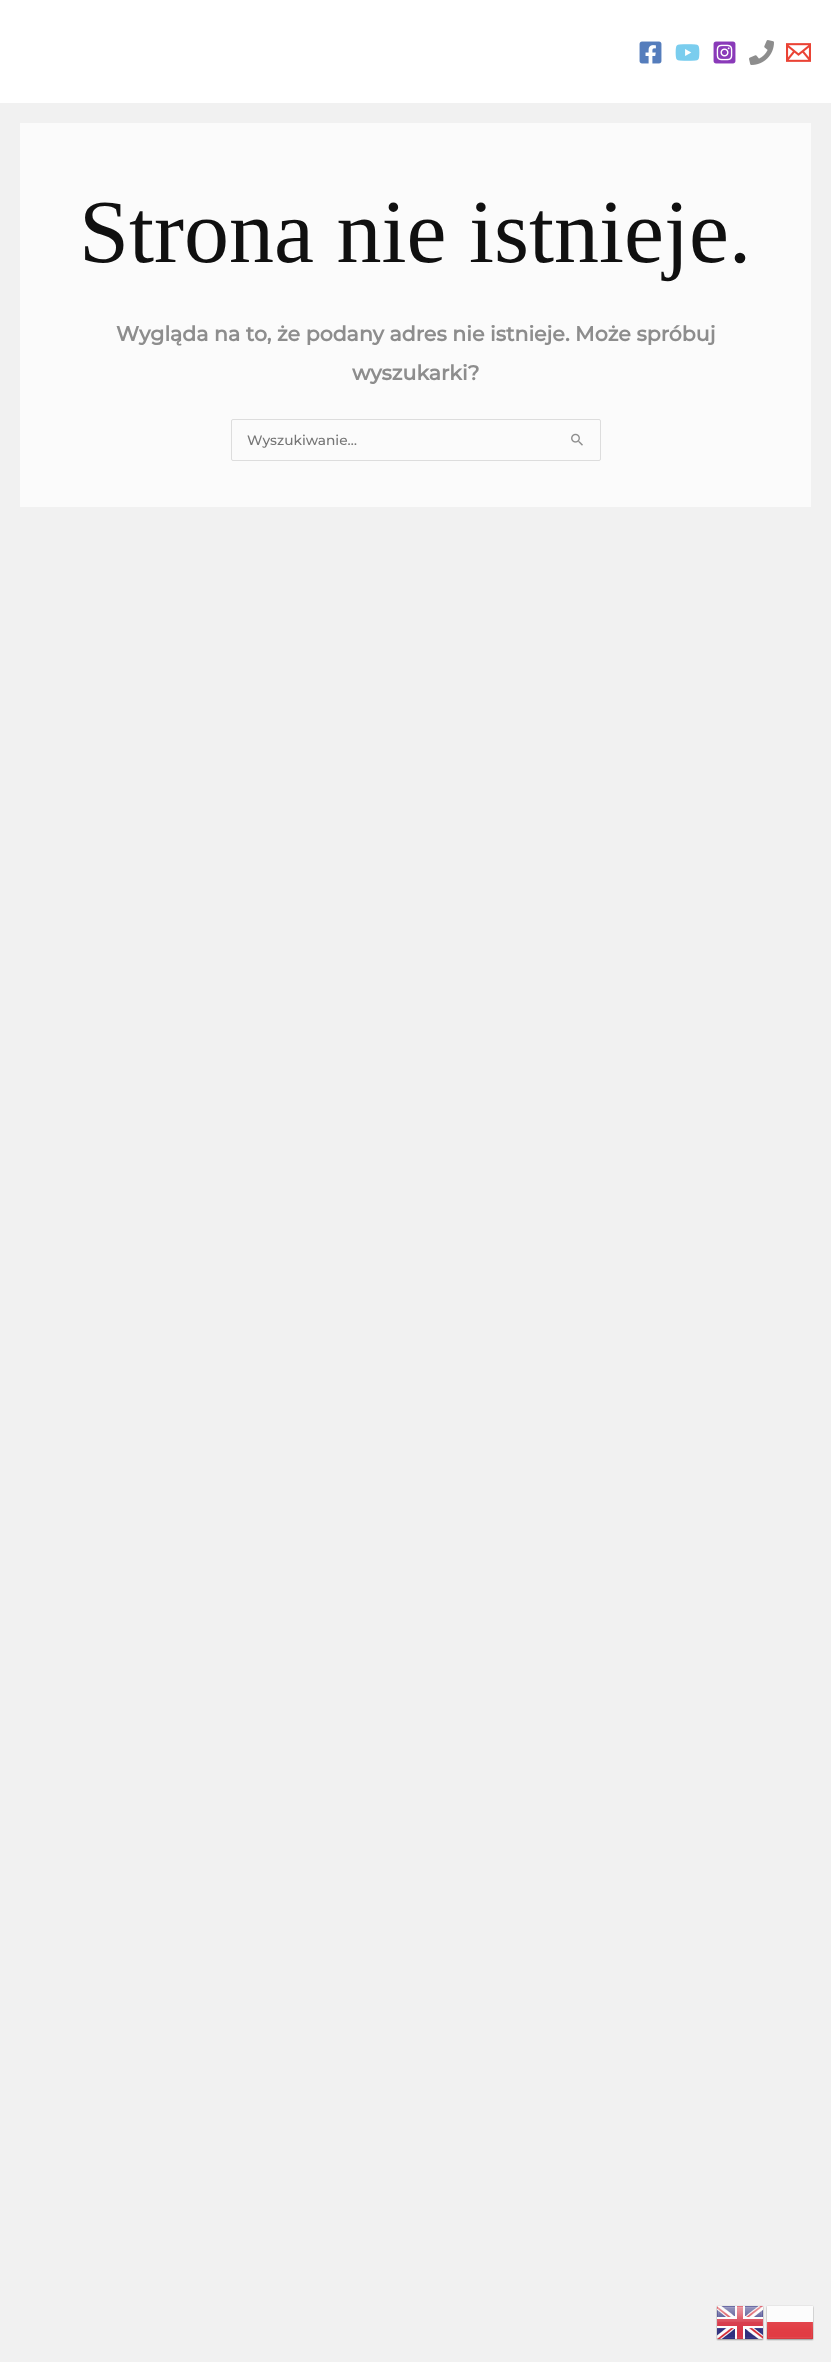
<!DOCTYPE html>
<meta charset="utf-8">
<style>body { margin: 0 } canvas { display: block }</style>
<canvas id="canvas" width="831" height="2362"></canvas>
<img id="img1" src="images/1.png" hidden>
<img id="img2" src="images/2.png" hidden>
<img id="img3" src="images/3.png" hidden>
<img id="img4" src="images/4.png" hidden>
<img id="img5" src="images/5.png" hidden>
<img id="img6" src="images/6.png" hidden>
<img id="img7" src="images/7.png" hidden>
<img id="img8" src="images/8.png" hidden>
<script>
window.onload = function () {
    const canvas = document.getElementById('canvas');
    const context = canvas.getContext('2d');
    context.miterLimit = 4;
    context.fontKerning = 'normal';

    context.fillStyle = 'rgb(241, 241, 241)';
    context.fillRect(0, 0, 831, 2362);
    context.fillStyle = 'rgb(255, 255, 255)';
    context.fillRect(0, 0, 831, 103);
    context.drawImage(document.getElementById('img1'), 639, 41, 23, 23);
    context.drawImage(document.getElementById('img2'), 675, 44, 25, 17);
    context.drawImage(document.getElementById('img3'), 713, 41, 23, 23);
    context.drawImage(document.getElementById('img4'), 749, 40, 25, 25);
    context.drawImage(document.getElementById('img5'), 786, 43, 25, 19);
    context.fillStyle = 'rgb(251, 251, 251)';
    context.fillRect(20, 123, 791, 384);
    context.beginPath();
    context.roundRect(231.5, 419.5, 369, 41, 1.5);
    context.strokeStyle = 'rgb(221, 221, 221)';
    context.stroke();
    context.drawImage(document.getElementById('img6'), 571, 433, 12, 13);
    context.drawImage(document.getElementById('img7'), 716, 2305, 48, 36);
    context.drawImage(document.getElementById('img8'), 766, 2305, 48, 36);
    context.font = '90px Liberation Serif';
    context.fillStyle = 'rgb(16, 16, 16)';
    context.fillText('Strona nie istnieje.', 79, 262);
    context.font = 'bold 20.5px Montserrat';
    context.fillStyle = 'rgb(141, 141, 141)';
    context.fillText('Wygląda na to, że podany adres nie istnieje. Może spróbuj', 116, 341);
    context.fillText('wyszukarki?', 352, 380);
    context.font = '100 13.75px Montserrat';
    context.fillStyle = 'rgb(117, 117, 117)';
    context.fillText('Wyszukiwanie…', 247, 445);
};
</script>
